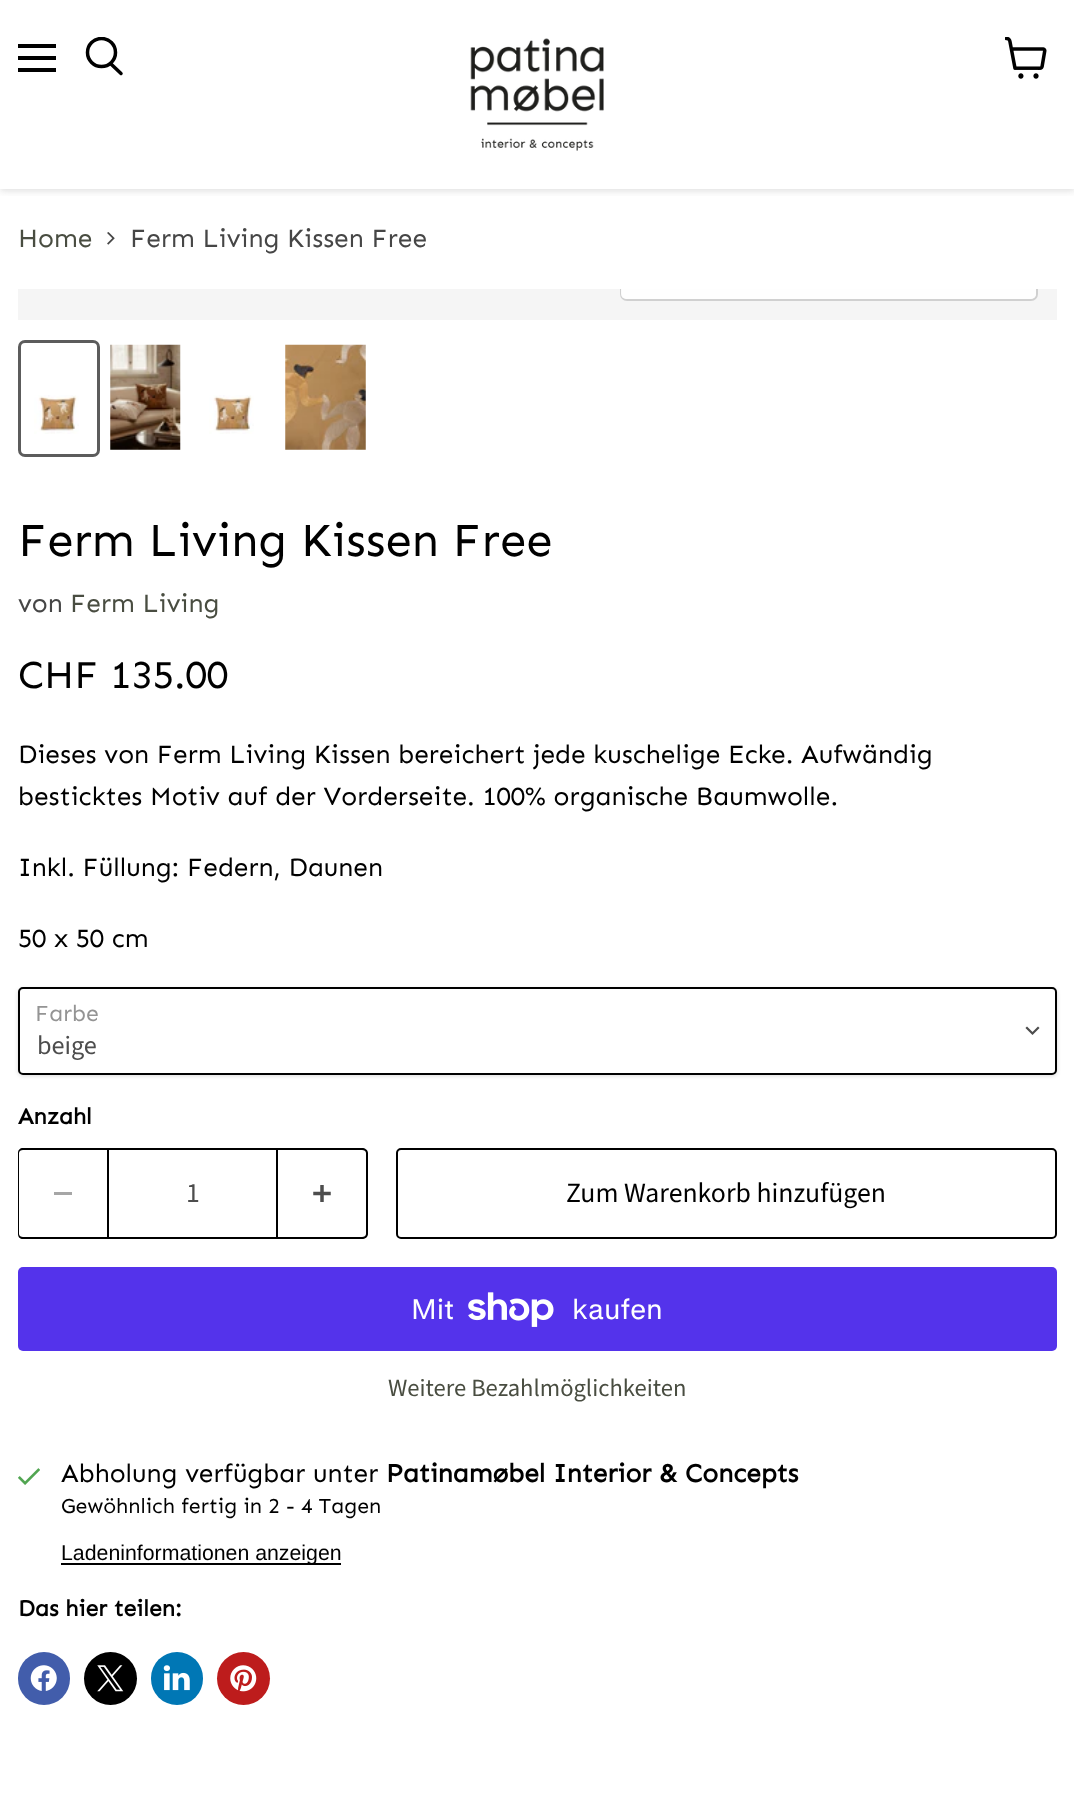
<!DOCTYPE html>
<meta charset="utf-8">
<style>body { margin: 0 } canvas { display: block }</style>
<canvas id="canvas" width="1074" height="1799"></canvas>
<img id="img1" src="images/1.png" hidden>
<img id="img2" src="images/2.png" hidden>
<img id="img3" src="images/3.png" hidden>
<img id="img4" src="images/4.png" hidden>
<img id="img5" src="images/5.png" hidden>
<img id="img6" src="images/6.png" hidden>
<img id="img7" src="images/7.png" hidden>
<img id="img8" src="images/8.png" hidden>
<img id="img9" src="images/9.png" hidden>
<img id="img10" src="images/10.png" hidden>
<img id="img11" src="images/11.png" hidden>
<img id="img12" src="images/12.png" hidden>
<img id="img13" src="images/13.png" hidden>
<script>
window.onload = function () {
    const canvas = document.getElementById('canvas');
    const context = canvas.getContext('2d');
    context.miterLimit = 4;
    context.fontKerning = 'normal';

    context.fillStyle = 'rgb(255, 255, 255)';
    context.fillRect(0, 0, 1074, 1799);
    context.save();
    context.beginPath();
    context.rect(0, 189, 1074, 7);
    context.clip();
    context.fillStyle = 'rgba(128, 128, 128, 0.25)';
    context.filter = 'blur(3.5px)';
    context.beginPath();
    context.rect(0, 2, 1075, 189);
    context.fill();
    context.filter = 'none';
    context.restore();
    context.fillStyle = 'rgb(0, 0, 0)';
    context.fillRect(18, 44, 38, 4);
    context.fillRect(18, 56, 38, 4);
    context.fillRect(18, 68, 38, 4);
    context.beginPath();
    context.moveTo(121, 73.5);
    context.lineTo(111, 64);
    context.strokeStyle = 'rgb(0, 0, 0)';
    context.lineWidth = 3.5;
    context.lineCap = 'round';
    context.stroke();
    context.save();
    context.beginPath();
    context.rect(84, 37, 40, 42);
    context.clip();
    context.beginPath();
    context.arc(101.5, 52.5, 14, 0, 2 * Math.PI);
    context.stroke();
    context.restore();
    context.drawImage(document.getElementById('img1'), 470, 38, 134, 113);
    context.drawImage(document.getElementById('img2'), 1005, 37, 42, 42);
    context.drawImage(document.getElementById('img3'), 107, 232, 8, 13);
    context.fillStyle = 'rgb(245, 245, 245)';
    context.fillRect(18, 289, 1039, 31);
    context.save();
    context.beginPath();
    context.rect(18, 289, 1039, 31);
    context.clip();
    context.beginPath();
    context.roundRect(621, 250, 416, 50, 6);
    context.strokeStyle = 'rgb(208, 208, 208)';
    context.lineWidth = 2;
    context.stroke();
    context.restore();
    context.fillStyle = 'rgba(255, 255, 255, 0.9)';
    context.beginPath();
    context.roundRect(621, 289, 415, 10, [0, 0, 5, 5]);
    context.fill();
    context.beginPath();
    context.roundRect(19.5, 341.5, 79, 114, 5.5);
    context.strokeStyle = 'rgb(92, 92, 92)';
    context.lineWidth = 3;
    context.stroke();
    context.drawImage(document.getElementById('img4'), 34, 395, 45, 39);
    context.drawImage(document.getElementById('img5'), 110, 344, 71, 106);
    context.drawImage(document.getElementById('img4'), 209, 395, 45, 39);
    context.drawImage(document.getElementById('img6'), 285, 344, 81, 106);
    context.fillStyle = 'rgba(0, 0, 0, 0.15)';
    context.filter = 'blur(2px)';
    context.beginPath();
    context.roundRect(18, 989, 1039, 87, 5);
    context.fill();
    context.filter = 'none';
    context.fillStyle = 'rgb(255, 255, 255)';
    context.beginPath();
    context.roundRect(19, 988, 1037, 86, 4);
    context.fill();
    context.strokeStyle = 'rgb(0, 0, 0)';
    context.lineWidth = 2;
    context.stroke();
    context.beginPath();
    context.moveTo(1032.5, 1033.5);
    context.lineTo(1038, 1028);
    context.moveTo(1032.5, 1033.5);
    context.lineTo(1027, 1028);
    context.strokeStyle = 'rgb(77, 77, 77)';
    context.lineWidth = 2.2;
    context.lineCap = 'square';
    context.stroke();
    context.fillStyle = 'rgb(0, 0, 0)';
    context.beginPath();
    context.moveTo(23, 1148);
    context.lineTo(107, 1148);
    context.lineTo(107, 1239);
    context.lineTo(23, 1239);
    context.bezierCurveTo(20, 1239, 18, 1237, 18, 1234);
    context.lineTo(18, 1153);
    context.bezierCurveTo(18, 1150, 20, 1148, 23, 1148);
    context.closePath();
    context.moveTo(23, 1150);
    context.lineTo(107, 1150);
    context.lineTo(107, 1237);
    context.lineTo(23, 1237);
    context.bezierCurveTo(21, 1237, 19, 1236, 19, 1234);
    context.lineTo(19, 1153);
    context.bezierCurveTo(19, 1151, 21, 1150, 23, 1150);
    context.closePath();
    context.fill('evenodd');
    context.fillStyle = 'rgb(166, 166, 166)';
    context.fillRect(54, 1192, 18, 3);
    context.strokeStyle = 'rgb(0, 0, 0)';
    context.lineWidth = 2;
    context.strokeRect(108, 1149, 169, 89);
    context.fillStyle = 'rgb(0, 0, 0)';
    context.beginPath();
    context.moveTo(278, 1148);
    context.lineTo(362, 1148);
    context.bezierCurveTo(365, 1148, 368, 1150, 368, 1153);
    context.lineTo(368, 1234);
    context.bezierCurveTo(368, 1237, 365, 1239, 362, 1239);
    context.lineTo(278, 1239);
    context.closePath();
    context.moveTo(278, 1150);
    context.lineTo(362, 1150);
    context.bezierCurveTo(364, 1150, 366, 1151, 366, 1153);
    context.lineTo(366, 1234);
    context.bezierCurveTo(366, 1236, 364, 1237, 362, 1237);
    context.lineTo(278, 1237);
    context.closePath();
    context.fill('evenodd');
    context.drawImage(document.getElementById('img7'), 313, 1185, 18, 17);
    context.beginPath();
    context.roundRect(397, 1149, 659, 89, 4);
    context.stroke();
    context.fillStyle = 'rgb(84, 51, 235)';
    context.beginPath();
    context.roundRect(18, 1267, 1039, 84, 5);
    context.fill();
    context.drawImage(document.getElementById('img8'), 468, 1292, 86, 35);
    context.drawImage(document.getElementById('img9'), 18, 1468, 22, 17);
    context.fillStyle = 'rgb(0, 0, 0)';
    context.fillRect(61, 1563, 280, 2);
    context.fillStyle = 'rgb(66, 93, 171)';
    context.beginPath();
    context.roundRect(18, 1652, 52, 53, 26);
    context.fill();
    context.drawImage(document.getElementById('img10'), 30, 1665, 27, 26);
    context.fillStyle = 'rgb(0, 0, 0)';
    context.beginPath();
    context.arc(110.5, 1678.5, 26.5, 0, 2 * Math.PI);
    context.fill();
    context.drawImage(document.getElementById('img11'), 97, 1665, 27, 27);
    context.fillStyle = 'rgb(0, 119, 181)';
    context.beginPath();
    context.roundRect(151, 1652, 52, 53, 26);
    context.fill();
    context.drawImage(document.getElementById('img12'), 163, 1665, 27, 26);
    context.fillStyle = 'rgb(189, 28, 28)';
    context.beginPath();
    context.arc(243.5, 1678.5, 26.5, 0, 2 * Math.PI);
    context.fill();
    context.drawImage(document.getElementById('img13'), 230, 1665, 27, 27);
    context.font = '26.25px Sen';
    context.fillStyle = 'rgb(73, 77, 65)';
    context.fillText('Home', 18, 247);
    context.fillStyle = 'rgb(70, 70, 70)';
    context.fillText('Ferm Living Kissen Free', 130, 247);
    context.font = '47.25px Sen';
    context.fillStyle = 'rgb(0, 0, 0)';
    context.fillText('Ferm Living Kissen Free', 18, 556);
    context.font = '26.25px Sen';
    context.fillStyle = 'rgb(70, 70, 70)';
    context.fillText('von', 18, 612);
    context.fillStyle = 'rgb(73, 77, 65)';
    context.fillText('Ferm Living', 70, 612);
    context.font = '39.5px Sen';
    context.fillStyle = 'rgb(0, 0, 0)';
    context.fillText('CHF 135.00', 18, 688);
    context.font = '26.25px Sen';
    context.fillText('Dieses von Ferm Living Kissen bereichert jede kuschelige Ecke. Aufwändig', 18, 763);
    context.fillText('besticktes Motiv auf der Vorderseite. 100% organische Baumwolle.', 18, 805);
    context.fillText('Inkl. Füllung: Federn, Daunen', 18, 876);
    context.fillText('50 x 50 cm', 18, 947);
    context.font = '23px Sen';
    context.fillStyle = 'rgb(148, 148, 148)';
    context.fillText('Farbe', 35, 1021);
    context.font = '26.25px Source Sans Pro';
    context.fillStyle = 'rgb(77, 77, 77)';
    context.fillText('beige', 37, 1054);
    context.font = 'bold 23px Sen';
    context.fillStyle = 'rgb(0, 0, 0)';
    context.fillText('Anzahl', 18, 1124);
    context.font = '27.75px Source Sans Pro';
    context.fillStyle = 'rgb(77, 77, 77)';
    context.fillText('1', 186, 1202);
    context.fillStyle = 'rgb(0, 0, 0)';
    context.fillText('Zum Warenkorb hinzufügen', 566, 1202);
    context.font = '28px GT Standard';
    context.fillStyle = 'rgb(255, 255, 255)';
    context.fillText('Mit', 411, 1319);
    context.fillText('kaufen', 572, 1319);
    context.font = '24.6px Source Sans Pro';
    context.fillStyle = 'rgb(73, 77, 65)';
    context.fillText('Weitere Bezahlmöglichkeiten', 388, 1396);
    context.font = '26.25px Sen';
    context.fillStyle = 'rgb(0, 0, 0)';
    context.fillText('Abholung verfügbar unter', 61, 1482);
    context.font = 'bold 26.25px Sen';
    context.fillText('Patinamøbel Interior & Concepts', 386, 1482);
    context.font = '21.3px Sen';
    context.fillText('Gewöhnlich fertig in 2 - 4 Tagen', 61, 1513);
    context.font = '21.3px Liberation Sans';
    context.fillText('Ladeninformationen anzeigen', 61, 1560);
    context.font = 'bold 23px Sen';
    context.fillText('Das hier teilen:', 18, 1616);
};
</script>
